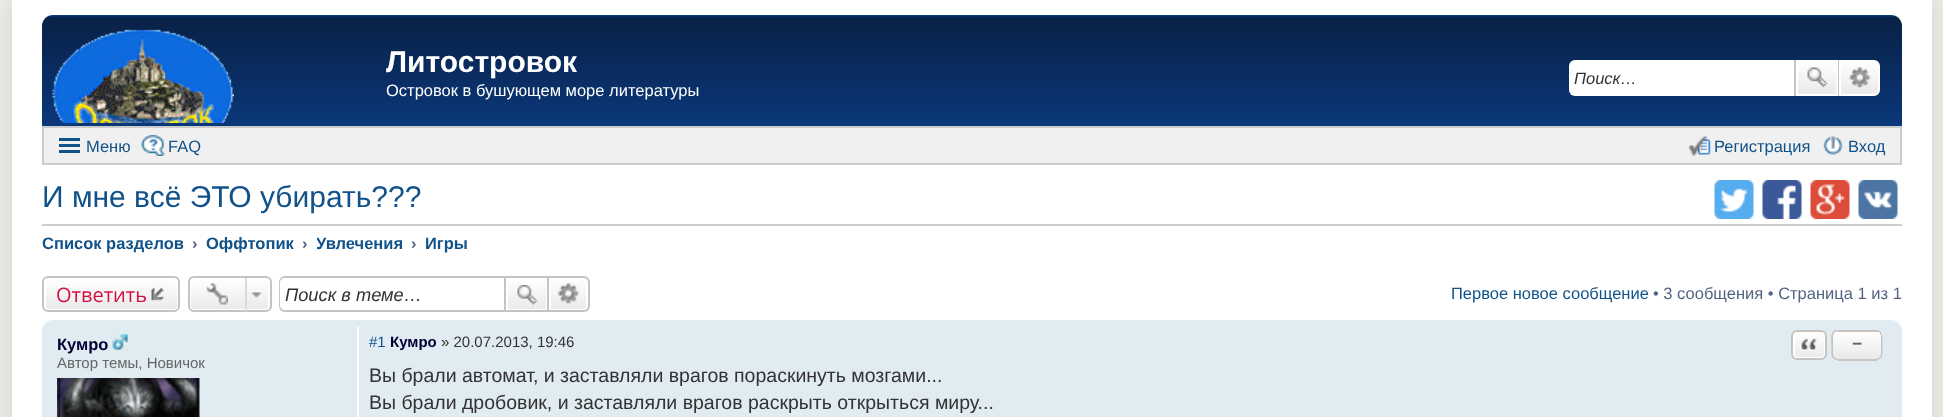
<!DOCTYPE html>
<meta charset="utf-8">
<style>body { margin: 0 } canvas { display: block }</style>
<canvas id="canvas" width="1943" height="417"></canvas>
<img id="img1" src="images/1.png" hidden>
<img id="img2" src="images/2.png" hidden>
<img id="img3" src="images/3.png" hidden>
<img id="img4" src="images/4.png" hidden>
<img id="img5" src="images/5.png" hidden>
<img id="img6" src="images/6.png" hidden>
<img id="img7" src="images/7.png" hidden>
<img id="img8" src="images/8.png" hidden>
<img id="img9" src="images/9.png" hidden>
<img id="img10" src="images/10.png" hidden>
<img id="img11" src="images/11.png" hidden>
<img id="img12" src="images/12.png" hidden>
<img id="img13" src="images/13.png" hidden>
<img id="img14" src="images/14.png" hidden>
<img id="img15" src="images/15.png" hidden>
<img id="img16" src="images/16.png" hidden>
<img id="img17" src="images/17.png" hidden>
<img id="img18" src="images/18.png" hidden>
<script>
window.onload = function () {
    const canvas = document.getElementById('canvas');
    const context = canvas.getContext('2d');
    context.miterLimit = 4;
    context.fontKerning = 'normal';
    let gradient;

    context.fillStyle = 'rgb(238, 238, 231)';
    context.fillRect(0, 0, 1943, 417);
    context.fillStyle = 'rgb(204, 204, 204)';
    context.filter = 'blur(11px)';
    context.beginPath();
    context.rect(12, 0, 1920, 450);
    context.fill();
    context.filter = 'none';
    context.fillStyle = 'rgb(255, 255, 255)';
    context.fillRect(12, 0, 1920, 417);
    gradient = context.createLinearGradient(972, 15, 972, 153);
    gradient.addColorStop(0, 'rgb(10, 62, 137)');
    gradient.addColorStop(0.02, 'rgb(9, 33, 70)');
    gradient.addColorStop(1, 'rgb(10, 61, 135)');
    context.fillStyle = gradient;
    context.beginPath();
    context.roundRect(42, 15, 1860, 111, [11, 11, 0, 0]);
    context.fill();
    context.drawImage(document.getElementById('img1'), 52, 29, 182, 94);
    context.fillStyle = 'rgb(255, 255, 255)';
    context.beginPath();
    context.roundRect(1569, 60, 225, 36, [6, 0, 0, 6]);
    context.fill();
    gradient = context.createLinearGradient(1817, 60, 1817, 96);
    gradient.addColorStop(0, 'rgb(255, 255, 255)');
    gradient.addColorStop(1, 'rgb(233, 233, 233)');
    context.fillStyle = gradient;
    context.fillRect(1798, 62, 38, 32);
    context.strokeStyle = 'rgb(255, 255, 255)';
    context.lineWidth = 2;
    context.strokeRect(1797, 61, 40, 34);
    context.fillStyle = 'rgb(199, 195, 191)';
    context.fillRect(1838, 60, 1, 36);
    context.fillRect(1794, 60, 2, 36);
    context.drawImage(document.getElementById('img2'), 1807, 67, 21, 21);
    gradient = context.createLinearGradient(1859, 60, 1859, 96);
    gradient.addColorStop(0, 'rgb(255, 255, 255)');
    gradient.addColorStop(1, 'rgb(233, 233, 233)');
    context.fillStyle = gradient;
    context.beginPath();
    context.roundRect(1840, 61, 39, 34, [0, 5, 5, 0]);
    context.fill();
    context.stroke();
    context.drawImage(document.getElementById('img3'), 1849, 67, 22, 21);
    context.fillStyle = 'rgb(240, 240, 240)';
    context.beginPath();
    context.rect(43, 127, 1858, 37);
    context.fill();
    context.strokeStyle = 'rgb(204, 204, 204)';
    context.stroke();
    context.fillStyle = 'rgb(16, 82, 137)';
    context.fillRect(59, 138, 21, 3);
    context.fillRect(59, 144, 21, 3);
    context.fillRect(59, 150, 21, 3);
    context.drawImage(document.getElementById('img4'), 141, 135, 24, 21);
    context.drawImage(document.getElementById('img5'), 1688, 136, 23, 20);
    context.drawImage(document.getElementById('img6'), 1823, 136, 20, 19);
    context.drawImage(document.getElementById('img7'), 1714, 180, 40, 39);
    context.drawImage(document.getElementById('img8'), 1762, 180, 40, 39);
    context.drawImage(document.getElementById('img9'), 1810, 180, 40, 39);
    context.drawImage(document.getElementById('img10'), 1858, 180, 40, 39);
    context.fillStyle = 'rgb(204, 204, 204)';
    context.fillRect(42, 224, 1860, 2);
    context.save();
    context.beginPath();
    context.roundRect(42, 276, 138, 36, 6);
    context.clip();
    gradient = context.createLinearGradient(111, 278, 111, 311);
    gradient.addColorStop(0, 'rgb(255, 255, 255)');
    gradient.addColorStop(1, 'rgb(233, 233, 233)');
    context.fillStyle = gradient;
    context.fillRect(42, 278, 138, 33);
    context.restore();
    context.beginPath();
    context.roundRect(45, 279, 133, 31, 4);
    context.strokeStyle = 'rgb(255, 255, 255)';
    context.stroke();
    context.beginPath();
    context.roundRect(43, 277, 136, 34, 5);
    context.strokeStyle = 'rgb(199, 195, 191)';
    context.stroke();
    context.drawImage(document.getElementById('img11'), 151, 287, 13, 14);
    context.save();
    context.beginPath();
    context.roundRect(188, 276, 84, 36, 6);
    context.clip();
    gradient = context.createLinearGradient(230, 278, 230, 311);
    gradient.addColorStop(0, 'rgb(255, 255, 255)');
    gradient.addColorStop(1, 'rgb(233, 233, 233)');
    context.fillStyle = gradient;
    context.fillRect(188, 278, 84, 33);
    context.restore();
    context.beginPath();
    context.roundRect(190, 279, 79, 31, 4);
    context.strokeStyle = 'rgb(255, 255, 255)';
    context.stroke();
    context.beginPath();
    context.roundRect(189, 277, 82, 34, 5);
    context.strokeStyle = 'rgb(199, 195, 191)';
    context.stroke();
    context.drawImage(document.getElementById('img12'), 206, 283, 22, 23);
    context.drawImage(document.getElementById('img13'), 251, 292, 11, 6);
    context.fillStyle = 'rgb(218, 218, 218)';
    context.fillRect(245, 278, 2, 33);
    context.fillStyle = 'rgb(199, 195, 191)';
    context.beginPath();
    context.moveTo(285, 276);
    context.lineTo(504, 276);
    context.lineTo(504, 312);
    context.lineTo(285, 312);
    context.bezierCurveTo(282, 312, 279, 309, 279, 306);
    context.lineTo(279, 282);
    context.bezierCurveTo(279, 279, 282, 276, 285, 276);
    context.closePath();
    context.moveTo(285, 278);
    context.lineTo(504, 278);
    context.lineTo(504, 310);
    context.lineTo(285, 310);
    context.bezierCurveTo(283, 310, 280, 308, 280, 306);
    context.lineTo(280, 282);
    context.bezierCurveTo(280, 280, 283, 278, 285, 278);
    context.closePath();
    context.fill('evenodd');
    gradient = context.createLinearGradient(527, 278, 527, 311);
    gradient.addColorStop(0, 'rgb(255, 255, 255)');
    gradient.addColorStop(1, 'rgb(233, 233, 233)');
    context.fillStyle = gradient;
    context.fillRect(508, 282, 38, 27);
    context.strokeRect(505, 277, 43, 34);
    context.drawImage(document.getElementById('img14'), 517, 285, 21, 20);
    gradient = context.createLinearGradient(569, 278, 569, 311);
    gradient.addColorStop(0, 'rgb(255, 255, 255)');
    gradient.addColorStop(1, 'rgb(233, 233, 233)');
    context.fillStyle = gradient;
    context.beginPath();
    context.roundRect(550, 279, 37, 31, [0, 4, 4, 0]);
    context.fill();
    context.strokeStyle = 'rgb(255, 255, 255)';
    context.stroke();
    context.fillStyle = 'rgb(199, 195, 191)';
    context.beginPath();
    context.moveTo(549, 276);
    context.lineTo(584, 276);
    context.bezierCurveTo(587, 276, 590, 279, 590, 282);
    context.lineTo(590, 306);
    context.bezierCurveTo(590, 309, 587, 312, 584, 312);
    context.lineTo(549, 312);
    context.closePath();
    context.moveTo(549, 278);
    context.lineTo(584, 278);
    context.bezierCurveTo(586, 278, 588, 280, 588, 282);
    context.lineTo(588, 306);
    context.bezierCurveTo(588, 308, 586, 310, 584, 310);
    context.lineTo(549, 310);
    context.closePath();
    context.fill('evenodd');
    context.drawImage(document.getElementById('img15'), 557, 283, 23, 21);
    context.fillStyle = 'rgb(225, 235, 242)';
    context.beginPath();
    context.roundRect(42, 320, 1860, 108, 11);
    context.fill();
    context.fillStyle = 'rgb(255, 255, 255)';
    context.fillRect(357, 327, 2, 90);
    context.drawImage(document.getElementById('img16'), 112, 334, 16, 16);
    context.drawImage(document.getElementById('img17'), 57, 378, 143, 39);
    context.save();
    context.beginPath();
    context.roundRect(1791, 330, 36, 30, 6);
    context.clip();
    gradient = context.createLinearGradient(1809, 332, 1809, 359);
    gradient.addColorStop(0, 'rgb(255, 255, 255)');
    gradient.addColorStop(1, 'rgb(233, 233, 233)');
    context.fillStyle = gradient;
    context.fillRect(1791, 332, 36, 27);
    context.restore();
    context.beginPath();
    context.roundRect(1794, 333, 31, 25, 4);
    context.stroke();
    context.beginPath();
    context.roundRect(1792, 331, 34, 28, 5);
    context.strokeStyle = 'rgb(199, 195, 191)';
    context.stroke();
    context.drawImage(document.getElementById('img18'), 1800, 338, 17, 13);
    context.beginPath();
    context.roundRect(1832, 330, 6, 30, [6, 0, 0, 6]);
    context.fill();
    context.save();
    context.beginPath();
    context.roundRect(1832, 330, 6, 30, [6, 0, 0, 6]);
    context.clip();
    gradient = context.createLinearGradient(1835, 332, 1835, 359);
    gradient.addColorStop(0, 'rgb(255, 255, 255)');
    gradient.addColorStop(1, 'rgb(233, 233, 233)');
    context.fillStyle = gradient;
    context.fillRect(1832, 332, 6, 27);
    context.restore();
    context.fillStyle = 'rgb(199, 195, 191)';
    context.beginPath();
    context.moveTo(1837.5, 330);
    context.lineTo(1837.5, 360);
    context.bezierCurveTo(1829.5, 360, 1831.5, 350, 1831.5, 345);
    context.bezierCurveTo(1831.5, 340, 1829.5, 330, 1837.5, 330);
    context.closePath();
    context.moveTo(1837.5, 331.5);
    context.lineTo(1837.5, 358.5);
    context.bezierCurveTo(1835, 358.5, 1833, 356.5, 1833, 354);
    context.lineTo(1833, 336);
    context.bezierCurveTo(1833, 333.5, 1835, 331.5, 1837.5, 331.5);
    context.closePath();
    context.fill('evenodd');
    gradient = context.createLinearGradient(1857, 332, 1857, 359);
    gradient.addColorStop(0, 'rgb(255, 255, 255)');
    gradient.addColorStop(1, 'rgb(233, 233, 233)');
    context.fillStyle = gradient;
    context.fillRect(1838, 332, 39, 27);
    context.fillStyle = 'rgb(199, 195, 191)';
    context.fillRect(1838, 330, 39, 2);
    context.fillRect(1838, 359, 39, 2);
    context.fillStyle = 'rgb(255, 255, 255)';
    context.beginPath();
    context.roundRect(1877, 330, 6, 30, [0, 6, 6, 0]);
    context.fill();
    context.save();
    context.beginPath();
    context.roundRect(1877, 330, 6, 30, [0, 6, 6, 0]);
    context.clip();
    gradient = context.createLinearGradient(1879, 332, 1879, 359);
    gradient.addColorStop(0, 'rgb(255, 255, 255)');
    gradient.addColorStop(1, 'rgb(233, 233, 233)');
    context.fillStyle = gradient;
    context.fillRect(1877, 332, 6, 27);
    context.restore();
    context.fillStyle = 'rgb(199, 195, 191)';
    context.beginPath();
    context.moveTo(1876.5, 330);
    context.bezierCurveTo(1884.5, 330, 1882.5, 340, 1882.5, 345);
    context.bezierCurveTo(1882.5, 350, 1884.5, 360, 1876.5, 360);
    context.closePath();
    context.moveTo(1876.5, 331.5);
    context.bezierCurveTo(1879, 331.5, 1881, 333.5, 1881, 336);
    context.lineTo(1881, 354);
    context.bezierCurveTo(1881, 356.5, 1879, 358.5, 1876.5, 358.5);
    context.closePath();
    context.fill('evenodd');
    context.font = 'bold 30px Liberation Sans';
    context.fillStyle = 'rgb(255, 255, 255)';
    context.fillText('Литостровок', 386, 72);
    context.font = '16.5px Liberation Sans';
    context.fillText('Островок в бушующем море литературы', 386, 96);
    context.font = 'italic 16.5px Liberation Sans';
    context.fillStyle = 'rgb(51, 51, 51)';
    context.fillText('Поиск…', 1574, 84);
    context.font = '16.5px Liberation Sans';
    context.fillStyle = 'rgb(16, 82, 137)';
    context.fillText('Меню', 86, 152);
    context.fillText('FAQ', 168, 152);
    context.fillText('Регистрация', 1714, 152);
    context.fillText('Вход', 1848, 152);
    context.font = '30px Liberation Sans';
    context.fillText('И мне всё ЭТО убирать???', 42, 207);
    context.font = 'bold 16.5px Liberation Sans';
    context.fillText('Список разделов', 42, 249);
    context.fillStyle = 'rgb(83, 100, 130)';
    context.fillText('›', 192, 249);
    context.fillStyle = 'rgb(16, 82, 137)';
    context.fillText('Оффтопик', 206, 249);
    context.fillStyle = 'rgb(83, 100, 130)';
    context.fillText('›', 302, 249);
    context.save();
    context.beginPath();
    context.rect(317, 225, 87, 36);
    context.clip();
    context.fillStyle = 'rgb(16, 82, 137)';
    context.fillText('Увлечения', 316, 249);
    context.restore();
    context.fillText('›', 411, 249);
    context.fillStyle = 'rgb(16, 82, 137)';
    context.fillText('Игры', 425, 249);
    context.font = '20px Open Sans';
    context.fillStyle = 'rgb(211, 17, 65)';
    context.fillText('Ответить', 56, 302);
    context.font = 'italic 18.25px Liberation Sans';
    context.fillStyle = 'rgb(51, 51, 51)';
    context.fillText('Поиск в теме…', 285, 301);
    context.font = '16.5px Liberation Sans';
    context.fillStyle = 'rgb(16, 82, 137)';
    context.fillText('Первое новое сообщение', 1451, 299);
    context.fillStyle = 'rgb(83, 100, 130)';
    context.fillText('• 3 сообщения • Страница 1 из 1', 1653, 299);
    context.font = 'bold 16.5px Liberation Sans';
    context.fillStyle = 'rgb(0, 0, 51)';
    context.fillText('Кумро', 57, 350);
    context.font = '15px Liberation Sans';
    context.fillStyle = 'rgb(102, 102, 102)';
    context.fillText('Автор темы, Новичок', 57, 368);
    context.fillStyle = 'rgb(16, 82, 137)';
    context.fillText('#1', 369, 347);
    context.font = 'bold 15px Liberation Sans';
    context.fillStyle = 'rgb(0, 0, 51)';
    context.fillText('Кумро', 390, 347);
    context.font = '15px Liberation Sans';
    context.fillStyle = 'rgb(51, 51, 51)';
    context.fillText('» 20.07.2013, 19:46', 441, 347);
    context.font = 'bold 18px Open Sans';
    context.fillStyle = 'rgb(102, 102, 102)';
    context.fillText('−', 1852, 350);
    context.font = '19.5px Liberation Sans';
    context.fillStyle = 'rgb(51, 51, 51)';
    context.fillText('Вы брали автомат, и заставляли врагов пораскинуть мозгами...', 369, 382);
    context.fillText('Вы брали дробовик, и заставляли врагов раскрыть открыться миру...', 369, 409);
};
</script>
